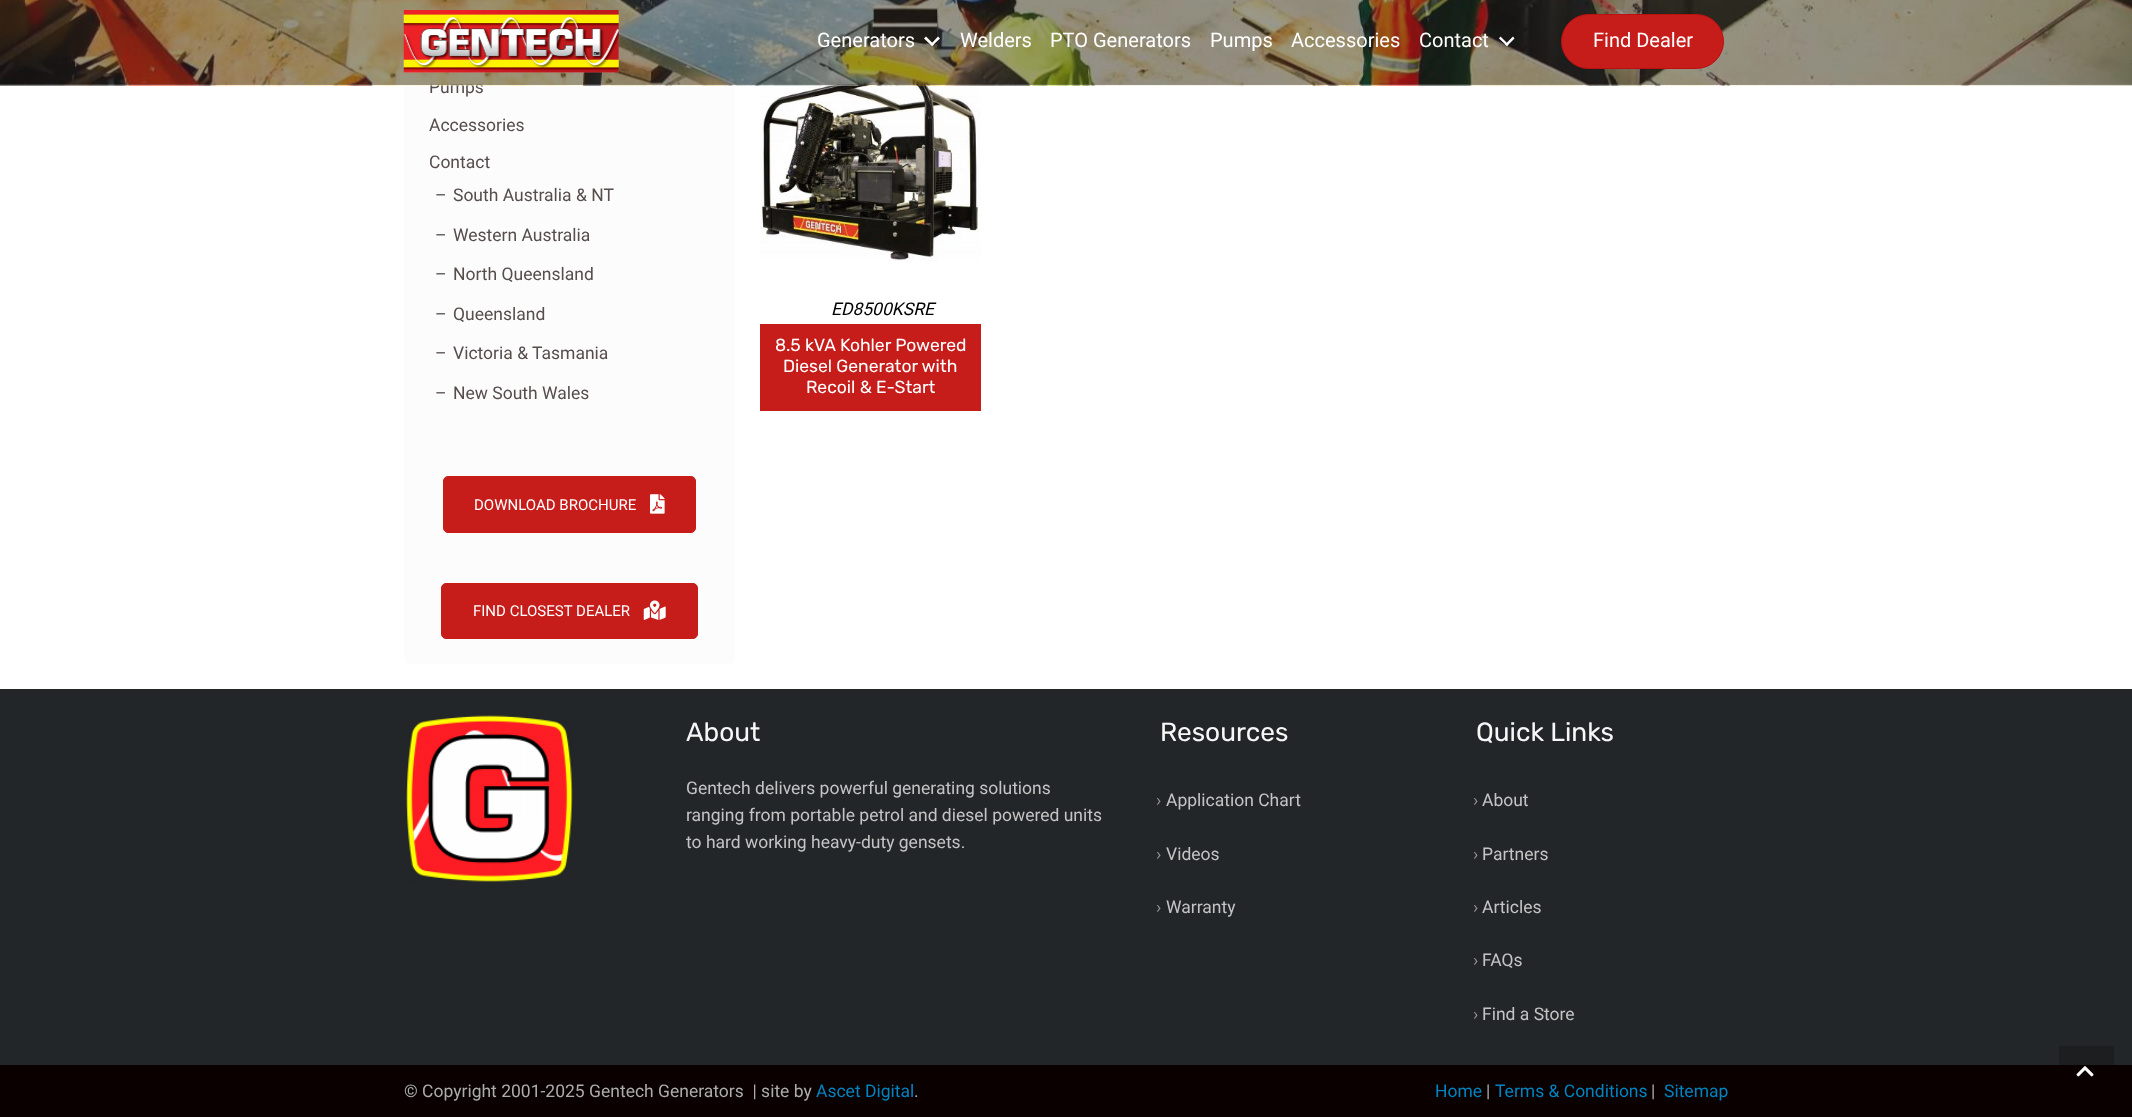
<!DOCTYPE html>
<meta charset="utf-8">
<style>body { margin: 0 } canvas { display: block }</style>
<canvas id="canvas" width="2132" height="1117"></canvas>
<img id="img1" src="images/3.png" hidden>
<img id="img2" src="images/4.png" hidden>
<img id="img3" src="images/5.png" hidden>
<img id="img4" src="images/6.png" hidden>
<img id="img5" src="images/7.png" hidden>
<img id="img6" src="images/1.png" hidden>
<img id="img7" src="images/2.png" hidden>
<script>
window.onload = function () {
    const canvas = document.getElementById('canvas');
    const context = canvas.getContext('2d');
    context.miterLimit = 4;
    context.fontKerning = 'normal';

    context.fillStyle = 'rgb(255, 255, 255)';
    context.fillRect(0, 0, 2132, 1117);
    context.fillStyle = 'rgb(252, 252, 252)';
    context.beginPath();
    context.roundRect(404, -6, 331, 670, 6);
    context.fill();
    context.fillStyle = 'rgb(198, 29, 27)';
    context.beginPath();
    context.roundRect(443.5, 476.5, 252, 56, 4.5);
    context.fill();
    context.strokeStyle = 'rgb(198, 29, 27)';
    context.stroke();
    context.drawImage(document.getElementById('img1'), 650, 494, 15, 20);
    context.beginPath();
    context.roundRect(441.5, 583.5, 256, 55, 4.5);
    context.fill();
    context.stroke();
    context.drawImage(document.getElementById('img2'), 643, 600, 23, 20);
    context.drawImage(document.getElementById('img3'), 760, 84, 221, 177);
    context.fillRect(760, 324, 221, 87);
    context.fillStyle = 'rgb(35, 38, 40)';
    context.fillRect(0, 689, 2132, 376);
    context.fillStyle = 'rgb(28, 30, 32)';
    context.fillRect(2059, 1046, 55, 19);
    context.drawImage(document.getElementById('img4'), 406, 715, 167, 167);
    context.fillStyle = 'rgb(10, 0, 0)';
    context.fillRect(0, 1065, 2132, 52);
    context.drawImage(document.getElementById('img5'), 2076, 1066, 18, 11);
    context.font = '17.5px Roboto';
    context.fillStyle = 'rgb(86, 77, 76)';
    context.fillText('Pumps', 429, 93);
    context.drawImage(document.getElementById('img6'), 0, 0, 2132, 86);
    context.fillStyle = 'rgba(35, 38, 40, 0.45)';
    context.fillRect(0, 0, 2132, 85);
    context.fillStyle = 'rgb(255, 255, 255)';
    context.beginPath();
    context.moveTo(1513, 36.5);
    context.lineTo(1514.5, 38.5);
    context.lineTo(1507, 46);
    context.lineTo(1505, 44.5);
    context.closePath();
    context.fill();
    context.beginPath();
    context.moveTo(1500.5, 36.5);
    context.lineTo(1508.5, 44.5);
    context.lineTo(1507, 46);
    context.lineTo(1499, 38.5);
    context.closePath();
    context.fill();
    context.beginPath();
    context.moveTo(938, 36.5);
    context.lineTo(940, 38.5);
    context.lineTo(932, 46);
    context.lineTo(930.5, 44.5);
    context.closePath();
    context.fill();
    context.beginPath();
    context.moveTo(926, 36.5);
    context.lineTo(934, 44.5);
    context.lineTo(932, 46);
    context.lineTo(924, 38.5);
    context.closePath();
    context.fill();
    context.font = '20px Roboto';
    context.fillText('Contact', 1419, 47);
    context.fillText('Accessories', 1291, 47);
    context.fillText('Pumps', 1210, 47);
    context.fillText('PTO Generators', 1050, 47);
    context.fillText('Welders', 960, 47);
    context.fillText('Generators', 817, 47);
    context.drawImage(document.getElementById('img7'), 403, 10, 216, 63);
    context.fillStyle = 'rgb(198, 29, 27)';
    context.beginPath();
    context.roundRect(1561.5, 14.5, 162, 54, 27);
    context.fill();
    context.strokeStyle = 'rgb(186, 17, 15)';
    context.stroke();
    context.fillStyle = 'rgb(255, 255, 255)';
    context.fillText('Find Dealer', 1593, 47);
    context.font = '17.5px Roboto';
    context.fillStyle = 'rgb(86, 77, 76)';
    context.fillText('Accessories', 429, 131);
    context.fillText('Contact', 429, 168);
    context.fillText('–', 435, 201);
    context.fillText('South Australia & NT', 453, 201);
    context.fillText('–', 435, 241);
    context.fillText('Western Australia', 453, 241);
    context.fillText('–', 435, 280);
    context.fillText('North Queensland', 453, 280);
    context.fillText('–', 435, 320);
    context.fillText('Queensland', 453, 320);
    context.fillText('–', 435, 359);
    context.fillText('Victoria & Tasmania', 453, 359);
    context.fillText('–', 435, 399);
    context.fillText('New South Wales', 453, 399);
    context.font = '15px Roboto';
    context.fillStyle = 'rgb(255, 255, 255)';
    context.fillText('DOWNLOAD BROCHURE', 474, 510);
    context.fillText('FIND CLOSEST DEALER', 473, 616);
    context.font = 'italic 17.5px Roboto';
    context.fillStyle = 'rgb(0, 0, 0)';
    context.fillText('ED8500KSRE', 831, 315);
    context.font = '300 17.5px Rubik';
    context.fillStyle = 'rgb(255, 255, 255)';
    context.fillText('8.5 kVA Kohler Powered', 775, 351);
    context.fillText('Diesel Generator with', 783, 372);
    context.fillText('Recoil & E-Start', 806, 393);
    context.font = '300 26.25px Rubik';
    context.fillStyle = 'rgb(247, 247, 247)';
    context.fillText('About', 686, 741);
    context.font = '17.5px Roboto';
    context.fillStyle = 'rgb(196, 196, 196)';
    context.fillText('Gentech delivers powerful generating solutions', 686, 794);
    context.fillText('ranging from portable petrol and diesel powered units', 686, 821);
    context.fillText('to hard working heavy-duty gensets.', 686, 848);
    context.font = '300 26.25px Rubik';
    context.fillStyle = 'rgb(247, 247, 247)';
    context.fillText('Resources', 1160, 741);
    context.font = '17.5px Roboto';
    context.fillStyle = 'rgb(141, 142, 142)';
    context.fillText('›', 1156, 806);
    context.fillStyle = 'rgb(196, 196, 196)';
    context.fillText('Application Chart', 1166, 806);
    context.fillStyle = 'rgb(141, 142, 142)';
    context.fillText('›', 1156, 860);
    context.fillStyle = 'rgb(196, 196, 196)';
    context.fillText('Videos', 1166, 860);
    context.fillStyle = 'rgb(141, 142, 142)';
    context.fillText('›', 1156, 913);
    context.fillStyle = 'rgb(196, 196, 196)';
    context.fillText('Warranty', 1166, 913);
    context.font = '300 26.25px Rubik';
    context.fillStyle = 'rgb(247, 247, 247)';
    context.fillText('Quick Links', 1476, 741);
    context.font = '17.5px Roboto';
    context.fillStyle = 'rgb(141, 142, 142)';
    context.fillText('›', 1473, 806);
    context.fillStyle = 'rgb(196, 196, 196)';
    context.fillText('About', 1482, 806);
    context.fillStyle = 'rgb(141, 142, 142)';
    context.fillText('›', 1473, 860);
    context.fillStyle = 'rgb(196, 196, 196)';
    context.fillText('Partners', 1482, 860);
    context.fillStyle = 'rgb(141, 142, 142)';
    context.fillText('›', 1473, 913);
    context.fillStyle = 'rgb(196, 196, 196)';
    context.fillText('Articles', 1482, 913);
    context.fillStyle = 'rgb(141, 142, 142)';
    context.fillText('›', 1473, 966);
    context.fillStyle = 'rgb(196, 196, 196)';
    context.fillText('FAQs', 1482, 966);
    context.fillStyle = 'rgb(141, 142, 142)';
    context.fillText('›', 1473, 1020);
    context.fillStyle = 'rgb(196, 196, 196)';
    context.fillText('Find a Store', 1482, 1020);
    context.fillStyle = 'rgb(171, 172, 173)';
    context.fillText('© Copyright 2001-2025 Gentech Generators  | site by', 404, 1097);
    context.fillStyle = 'rgb(0, 131, 193)';
    context.fillText('Ascet Digital', 816, 1097);
    context.fillStyle = 'rgb(171, 172, 173)';
    context.fillText('.', 914, 1097);
    context.fillStyle = 'rgb(0, 131, 193)';
    context.fillText('Home', 1435, 1097);
    context.fillStyle = 'rgb(171, 172, 173)';
    context.fillText('|', 1486, 1097);
    context.fillStyle = 'rgb(0, 131, 193)';
    context.fillText('Terms & Conditions', 1495, 1097);
    context.fillStyle = 'rgb(171, 172, 173)';
    context.fillText('|', 1651, 1097);
    context.fillStyle = 'rgb(0, 131, 193)';
    context.fillText('Sitemap', 1664, 1097);
};
</script>
